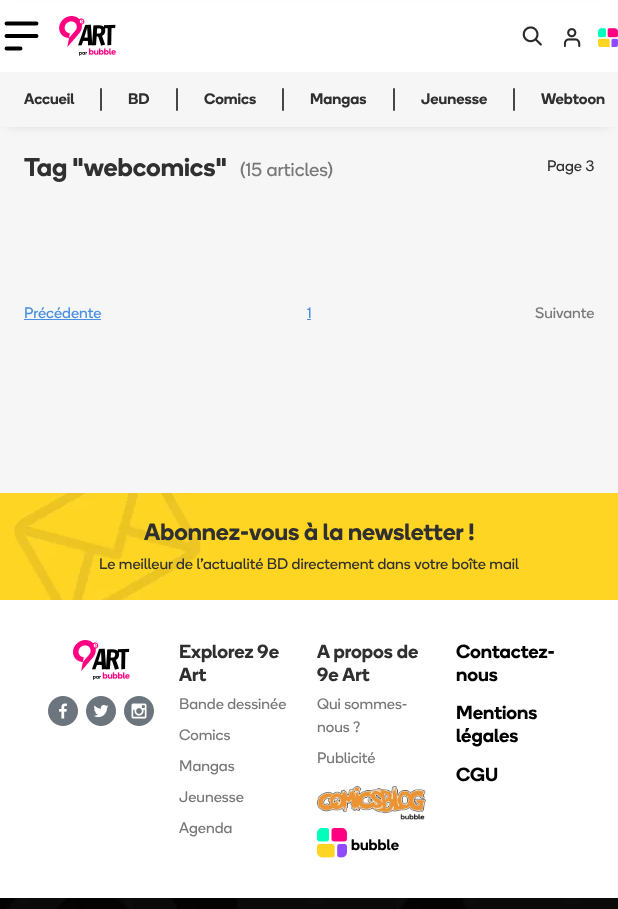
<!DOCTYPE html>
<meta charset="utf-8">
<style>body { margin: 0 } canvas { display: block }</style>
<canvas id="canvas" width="618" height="909"></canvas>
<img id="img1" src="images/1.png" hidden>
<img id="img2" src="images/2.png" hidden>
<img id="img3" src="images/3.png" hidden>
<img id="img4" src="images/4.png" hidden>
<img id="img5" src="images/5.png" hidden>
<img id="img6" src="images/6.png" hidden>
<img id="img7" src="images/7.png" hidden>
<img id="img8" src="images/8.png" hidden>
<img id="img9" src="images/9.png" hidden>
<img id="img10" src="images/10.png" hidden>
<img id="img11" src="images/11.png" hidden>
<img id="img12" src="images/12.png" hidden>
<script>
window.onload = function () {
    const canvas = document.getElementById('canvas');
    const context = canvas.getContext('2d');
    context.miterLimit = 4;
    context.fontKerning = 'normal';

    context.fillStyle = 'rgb(255, 255, 255)';
    context.fillRect(0, 0, 618, 909);
    context.drawImage(document.getElementById('img1'), 0, 898, 618, 11);
    context.fillStyle = 'rgb(246, 246, 246)';
    context.fillRect(0, 127, 618, 366);
    context.fillStyle = 'rgba(0, 0, 0, 0.2)';
    context.filter = 'blur(6.5px)';
    context.beginPath();
    context.rect(9, 14, 600, 109);
    context.fill();
    context.filter = 'none';
    context.fillStyle = 'rgb(255, 255, 255)';
    context.fillRect(0, 3, 618, 69);
    context.beginPath();
    context.moveTo(6.5, 23.5);
    context.lineTo(36.5, 23.5);
    context.moveTo(6.5, 36);
    context.lineTo(36.5, 36);
    context.moveTo(6.5, 48.5);
    context.lineTo(20.5, 48.5);
    context.strokeStyle = 'rgb(0, 0, 0)';
    context.lineWidth = 3.9;
    context.lineCap = 'round';
    context.stroke();
    context.drawImage(document.getElementById('img2'), 59, 16, 57, 40);
    context.drawImage(document.getElementById('img3'), 522, 26, 20, 20);
    context.drawImage(document.getElementById('img4'), 564, 28, 17, 19);
    context.drawImage(document.getElementById('img5'), 598, 28, 20, 19);
    context.fillStyle = 'rgb(246, 246, 246)';
    context.fillRect(0, 72, 618, 55);
    context.fillStyle = 'rgb(70, 70, 70)';
    context.beginPath();
    context.roundRect(100, 88, 2, 23, 1);
    context.fill();
    context.beginPath();
    context.roundRect(176, 88, 2, 23, 1);
    context.fill();
    context.beginPath();
    context.roundRect(282, 88, 2, 23, 1);
    context.fill();
    context.beginPath();
    context.roundRect(393, 88, 2, 23, 1);
    context.fill();
    context.beginPath();
    context.roundRect(513, 88, 2, 23, 1);
    context.fill();
    context.fillStyle = 'rgb(74, 144, 226)';
    context.fillRect(24, 319, 77, 1);
    context.fillRect(307, 319, 4, 1);
    context.drawImage(document.getElementById('img6'), 0, 493, 618, 107);
    context.drawImage(document.getElementById('img7'), 73, 640, 57, 40);
    context.drawImage(document.getElementById('img8'), 48, 696, 30, 30);
    context.drawImage(document.getElementById('img9'), 86, 696, 30, 30);
    context.drawImage(document.getElementById('img10'), 124, 696, 30, 30);
    context.drawImage(document.getElementById('img11'), 317, 786, 109, 34);
    context.drawImage(document.getElementById('img12'), 317, 828, 30, 30);
    context.font = '600 15.2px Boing';
    context.fillStyle = 'rgb(48, 48, 48)';
    context.fillText('Accueil', 24, 104);
    context.fillText('BD', 128, 104);
    context.fillText('Comics', 204, 104);
    context.fillText('Mangas', 310, 104);
    context.fillText('Jeunesse', 421, 104);
    context.fillText('Webtoon', 541, 104);
    context.font = '600 25.75px Boing';
    context.fillText('Tag "webcomics"', 24, 176);
    context.font = '19px Boing';
    context.fillStyle = 'rgb(120, 120, 120)';
    context.fillText('(15 articles)', 240, 176);
    context.font = '15.2px Boing';
    context.fillStyle = 'rgb(48, 48, 48)';
    context.fillText('Page 3', 547, 171);
    context.fillStyle = 'rgb(74, 144, 226)';
    context.fillText('Précédente', 24, 318);
    context.fillText('1', 307, 318);
    context.fillStyle = 'rgb(120, 120, 120)';
    context.fillText('Suivante', 535, 318);
    context.font = '600 23.75px Boing';
    context.fillStyle = 'rgb(48, 48, 48)';
    context.fillText('Abonnez-vous à la newsletter !', 144, 540);
    context.font = '15.2px Boing';
    context.fillText('Le meilleur de l\'actualité BD directement dans votre boîte mail', 99, 569);
    context.font = '600 19px Boing';
    context.fillText('Explorez 9e', 179, 658);
    context.fillText('Art', 179, 681);
    context.font = '15.2px Boing';
    context.fillStyle = 'rgb(120, 120, 120)';
    context.fillText('Bande dessinée', 179, 709);
    context.fillText('Comics', 179, 740);
    context.fillText('Mangas', 179, 771);
    context.fillText('Jeunesse', 179, 802);
    context.fillText('Agenda', 179, 833);
    context.font = '600 19px Boing';
    context.fillStyle = 'rgb(48, 48, 48)';
    context.fillText('A propos de', 317, 658);
    context.fillText('9e Art', 317, 681);
    context.font = '15.2px Boing';
    context.fillStyle = 'rgb(120, 120, 120)';
    context.fillText('Qui sommes-', 317, 709);
    context.fillText('nous ?', 317, 732);
    context.fillText('Publicité', 317, 763);
    context.font = '600 15.2px Boing';
    context.fillStyle = 'rgb(0, 0, 0)';
    context.fillText('bubble', 351, 850);
    context.font = '600 19px Boing';
    context.fillText('Contactez-', 456, 658);
    context.fillText('nous', 456, 681);
    context.fillText('Mentions', 456, 719);
    context.fillText('légales', 456, 742);
    context.fillText('CGU', 456, 781);
};
</script>
